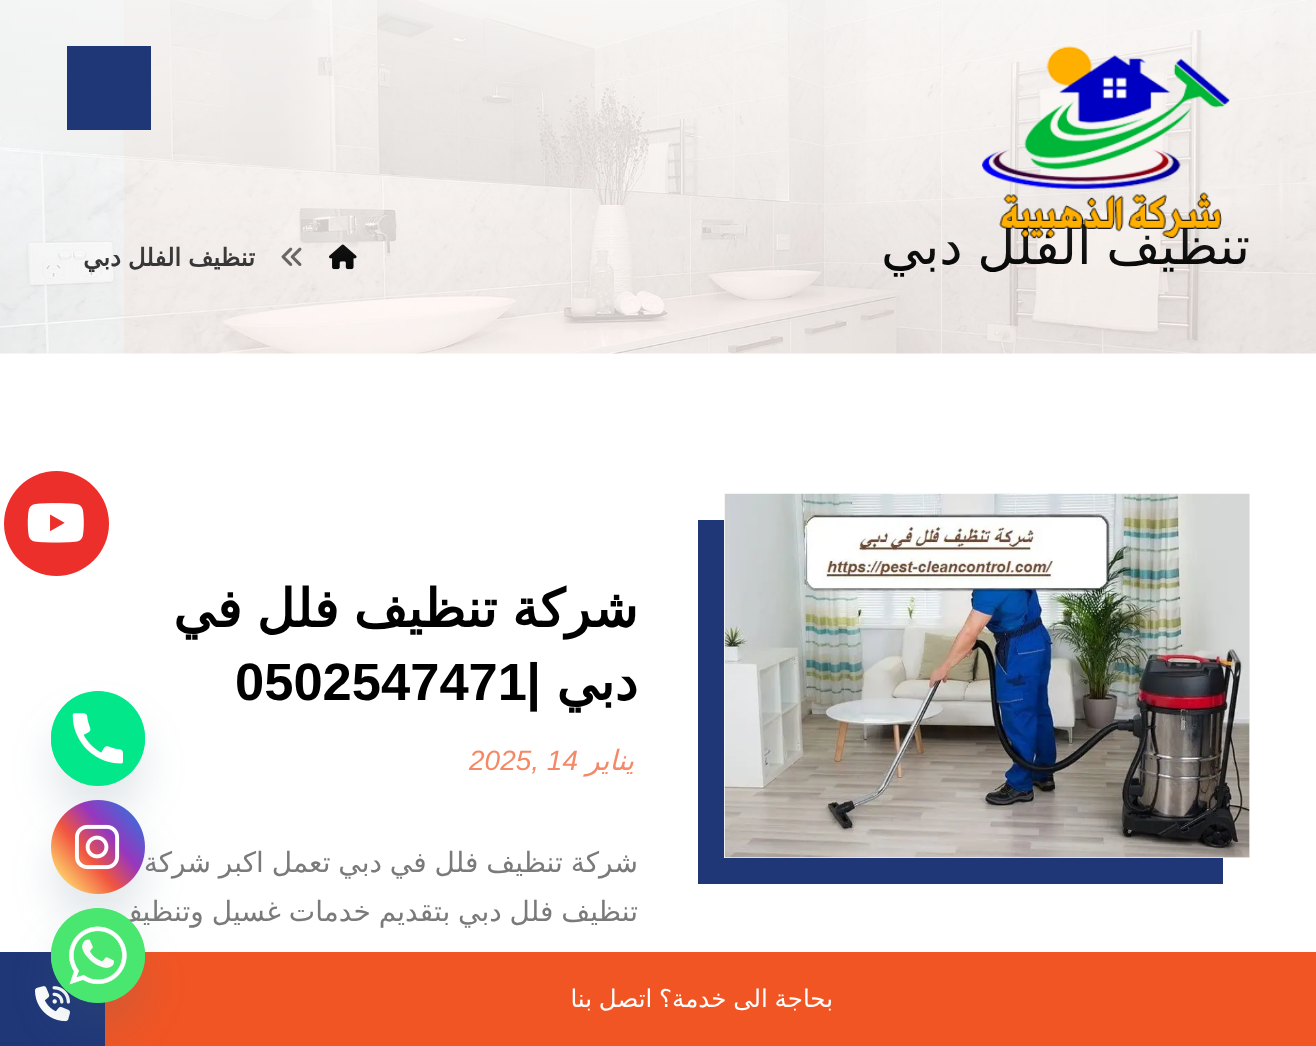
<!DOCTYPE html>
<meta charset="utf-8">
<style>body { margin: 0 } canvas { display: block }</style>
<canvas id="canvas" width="1316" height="1046"></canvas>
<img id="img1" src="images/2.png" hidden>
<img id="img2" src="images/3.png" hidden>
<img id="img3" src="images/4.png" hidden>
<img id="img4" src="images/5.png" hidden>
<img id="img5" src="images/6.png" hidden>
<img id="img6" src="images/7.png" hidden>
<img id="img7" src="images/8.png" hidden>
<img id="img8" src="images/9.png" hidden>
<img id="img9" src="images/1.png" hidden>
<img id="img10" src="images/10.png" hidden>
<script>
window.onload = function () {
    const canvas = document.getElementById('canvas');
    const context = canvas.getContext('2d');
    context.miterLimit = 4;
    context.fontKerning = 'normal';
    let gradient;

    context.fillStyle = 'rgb(255, 255, 255)';
    context.fillRect(0, 0, 1316, 1046);
    context.drawImage(document.getElementById('img1'), 0, 0, 1316, 354);
    context.drawImage(document.getElementById('img2'), 329, 244, 28, 26);
    context.drawImage(document.getElementById('img3'), 281, 247, 21, 19);
    context.fillStyle = 'rgb(31, 55, 119)';
    context.beginPath();
    context.moveTo(698, 520);
    context.lineTo(698, 884);
    context.lineTo(1223, 884);
    context.lineTo(1223, 858);
    context.lineTo(724, 858);
    context.lineTo(724, 520);
    context.closePath();
    context.fill();
    context.fillStyle = 'rgb(238, 238, 238)';
    context.fillRect(725, 494, 525, 364);
    context.drawImage(document.getElementById('img4'), 724, 493, 526, 365);
    context.fillStyle = 'rgb(236, 47, 43)';
    context.beginPath();
    context.arc(56.5, 523.5, 52.5, 0, 2 * Math.PI);
    context.fill();
    context.drawImage(document.getElementById('img5'), 27, 503, 57, 40);
    context.fillStyle = 'rgb(241, 85, 36)';
    context.fillRect(105, 952, 1211, 94);
    context.fillStyle = 'rgb(31, 55, 119)';
    context.fillRect(0, 952, 105, 94);
    context.drawImage(document.getElementById('img6'), 35, 986, 35, 36);
    context.fillStyle = 'rgba(73, 104, 126, 0.16)';
    context.filter = 'blur(21px)';
    context.beginPath();
    context.roundRect(51, 719, 94, 95, 47);
    context.fill();
    context.filter = 'none';
    context.fillStyle = 'rgb(3, 231, 139)';
    context.beginPath();
    context.roundRect(51, 691, 94, 95, 47);
    context.fill();
    context.drawImage(document.getElementById('img7'), 51, 691, 94, 95);
    context.fillStyle = 'rgba(73, 104, 126, 0.16)';
    context.filter = 'blur(21px)';
    context.beginPath();
    context.roundRect(51, 828, 94, 94, 47);
    context.fill();
    context.filter = 'none';
    context.drawImage(document.getElementById('img8'), 51, 800, 94, 94);
    context.filter = 'blur(21px)';
    context.beginPath();
    context.roundRect(51, 936, 94, 95, 47);
    context.fill();
    context.filter = 'none';
    context.wordSpacing = '-2px';
    context.direction = 'rtl';
    context.font = '52.5px DejaVu Sans';
    context.fillStyle = 'rgb(0, 0, 0)';
    context.fillText('تنظيف الفلل دبي', 1250, 264);
    context.wordSpacing = '-1px';
    context.font = 'bold 24.5px DejaVu Sans';
    context.fillStyle = 'rgb(48, 47, 47)';
    context.fillText('تنظيف الفلل دبي', 255, 266);
    gradient = context.createLinearGradient(658, 277, 658, 0);
    gradient.addColorStop(0, 'rgba(255, 255, 255, 0.01)');
    gradient.addColorStop(1, 'rgba(255, 255, 255, 0.54)');
    context.fillStyle = gradient;
    context.fillRect(0, 0, 1316, 271);
    context.fillStyle = 'rgb(31, 55, 119)';
    context.fillRect(67, 46, 84, 84);
    context.drawImage(document.getElementById('img9'), 982, 46, 248, 193);
    context.wordSpacing = '-2px';
    context.font = 'bold 52.5px DejaVu Sans';
    context.fillStyle = 'rgb(0, 0, 0)';
    context.fillText('شركة تنظيف فلل في', 638, 627);
    context.wordSpacing = '0px';
    context.fillText('دبي', 638, 700);
    context.font = 'bold 52.5px Liberation Sans';
    context.fillText('|', 541, 700);
    context.direction = 'ltr';
    context.fillText('0502547471', 235, 700);
    context.direction = 'rtl';
    context.font = 'italic 28px DejaVu Sans';
    context.fillStyle = 'rgb(245, 136, 102)';
    context.fillText('يناير', 634, 770);
    context.direction = 'ltr';
    context.font = 'italic 28px Liberation Sans';
    context.fillText('2025, 14', 469, 770);
    context.wordSpacing = '-1px';
    context.direction = 'rtl';
    context.font = '28px DejaVu Sans';
    context.fillStyle = 'rgb(122, 122, 122)';
    context.fillText('شركة تنظيف فلل في دبي تعمل اكبر شركة', 638, 872);
    context.fillText('تنظيف فلل دبي بتقديم خدمات غسيل وتنظيف', 638, 921);
    context.font = '24.5px DejaVu Sans';
    context.fillStyle = 'rgb(255, 255, 255)';
    context.fillText('بحاجة الى خدمة؟ اتصل بنا', 833, 1007);
    context.fillStyle = 'rgb(73, 230, 112)';
    context.beginPath();
    context.roundRect(51, 908, 94, 95, 47);
    context.fill();
    context.drawImage(document.getElementById('img10'), 51, 908, 94, 95);
};
</script>
